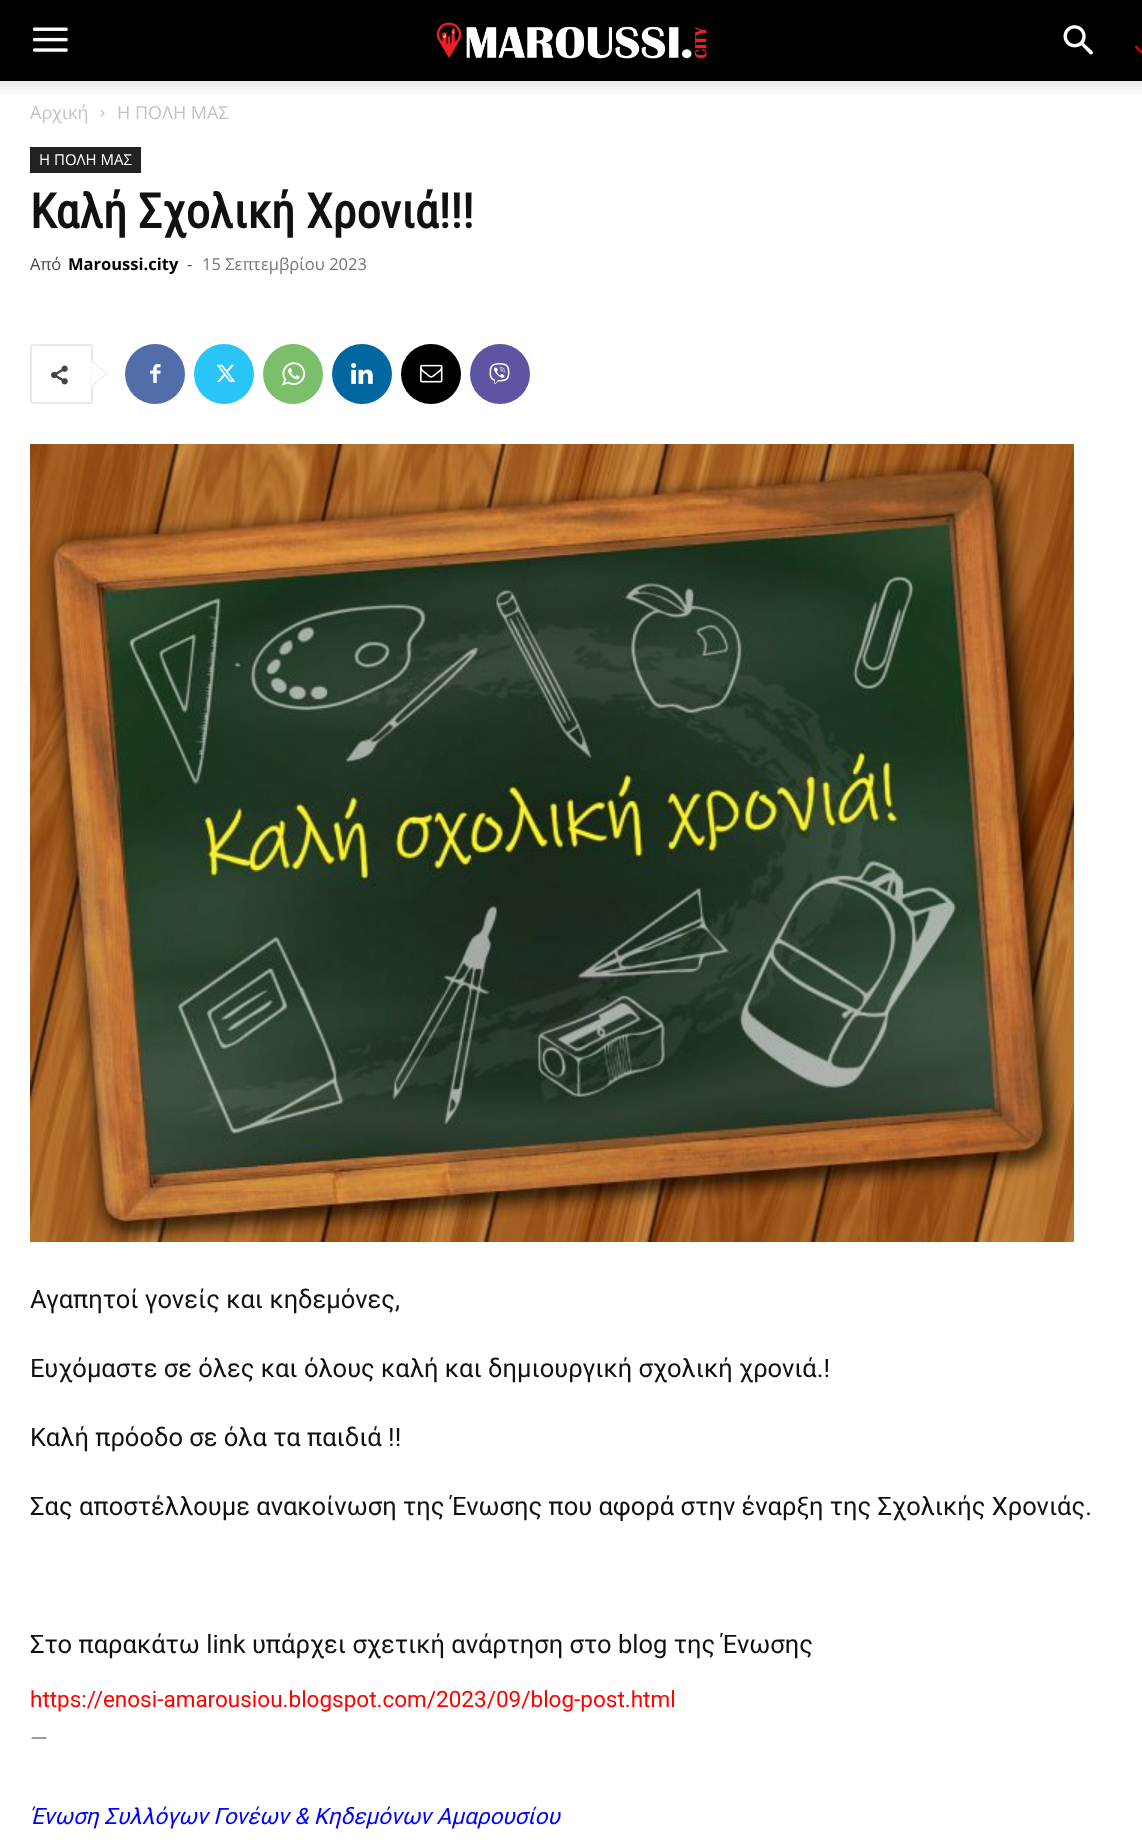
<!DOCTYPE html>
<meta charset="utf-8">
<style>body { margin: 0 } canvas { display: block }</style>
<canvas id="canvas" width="1142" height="1843"></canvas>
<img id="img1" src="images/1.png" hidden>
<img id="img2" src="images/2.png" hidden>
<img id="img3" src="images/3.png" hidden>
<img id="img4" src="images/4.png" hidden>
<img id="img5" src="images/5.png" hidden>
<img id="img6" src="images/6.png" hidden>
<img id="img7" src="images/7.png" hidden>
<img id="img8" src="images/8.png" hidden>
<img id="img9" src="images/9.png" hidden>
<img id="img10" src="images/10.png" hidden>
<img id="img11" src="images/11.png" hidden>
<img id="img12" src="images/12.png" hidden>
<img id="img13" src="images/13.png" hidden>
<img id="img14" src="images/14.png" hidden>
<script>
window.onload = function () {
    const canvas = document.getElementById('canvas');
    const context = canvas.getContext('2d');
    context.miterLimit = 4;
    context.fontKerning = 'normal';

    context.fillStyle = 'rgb(255, 255, 255)';
    context.fillRect(0, 0, 1142, 1843);
    context.fillStyle = 'rgb(0, 0, 0)';
    context.fillRect(0, 0, 1142, 81);
    context.drawImage(document.getElementById('img1'), 33, 27, 35, 25);
    context.drawImage(document.getElementById('img2'), 436, 22, 271, 37);
    context.drawImage(document.getElementById('img3'), 1063, 25, 30, 30);
    context.drawImage(document.getElementById('img4'), 1135, 45, 7, 8);
    context.drawImage(document.getElementById('img5'), 0, 81, 1142, 13);
    context.drawImage(document.getElementById('img6'), 100, 110, 5, 7);
    context.fillStyle = 'rgb(34, 34, 34)';
    context.fillRect(30, 147, 111, 26);
    context.beginPath();
    context.roundRect(31, 345, 61, 58, 2);
    context.strokeStyle = 'rgb(233, 233, 233)';
    context.lineWidth = 2;
    context.stroke();
    context.fillStyle = 'rgb(233, 233, 233)';
    context.beginPath();
    context.moveTo(91.5, 387);
    context.lineTo(91.5, 360);
    context.lineTo(108, 373.5);
    context.closePath();
    context.fill();
    context.drawImage(document.getElementById('img7'), 51, 365, 17, 20);
    context.fillStyle = 'rgb(255, 255, 255)';
    context.beginPath();
    context.moveTo(91.5, 385.5);
    context.lineTo(91.5, 361.5);
    context.lineTo(106.5, 373.5);
    context.closePath();
    context.fill();
    context.fillStyle = 'rgb(81, 110, 171)';
    context.beginPath();
    context.arc(155, 374, 30, 0, 2 * Math.PI);
    context.fill();
    context.drawImage(document.getElementById('img8'), 150, 364, 11, 19);
    context.fillStyle = 'rgb(41, 197, 246)';
    context.beginPath();
    context.arc(224, 374, 30, 0, 2 * Math.PI);
    context.fill();
    context.drawImage(document.getElementById('img9'), 216, 364, 20, 18);
    context.fillStyle = 'rgb(123, 191, 106)';
    context.beginPath();
    context.arc(293, 374, 30, 0, 2 * Math.PI);
    context.fill();
    context.drawImage(document.getElementById('img10'), 282, 362, 24, 24);
    context.fillStyle = 'rgb(2, 102, 160)';
    context.beginPath();
    context.arc(362, 374, 30, 0, 2 * Math.PI);
    context.fill();
    context.drawImage(document.getElementById('img11'), 351, 363, 22, 21);
    context.fillStyle = 'rgb(0, 0, 0)';
    context.beginPath();
    context.arc(431, 374, 30, 0, 2 * Math.PI);
    context.fill();
    context.drawImage(document.getElementById('img12'), 420, 364, 23, 19);
    context.fillStyle = 'rgb(93, 84, 164)';
    context.beginPath();
    context.arc(500, 374, 30, 0, 2 * Math.PI);
    context.fill();
    context.drawImage(document.getElementById('img13'), 489, 363, 21, 21);
    context.drawImage(document.getElementById('img14'), 30, 444, 1044, 798);
    context.font = '18px Open Sans';
    context.fillStyle = 'rgb(195, 195, 195)';
    context.fillText('Αρχική', 30, 119);
    context.fillText('Η ΠΟΛΗ ΜΑΣ', 117, 119);
    context.font = '15px Open Sans';
    context.fillStyle = 'rgb(255, 255, 255)';
    context.fillText('Η ΠΟΛΗ ΜΑΣ', 39, 165);
    context.font = 'bold 48px Roboto Condensed';
    context.fillStyle = 'rgb(17, 17, 17)';
    context.fillText('Καλή Σχολική Χρονιά!!!', 30, 228);
    context.font = '16.5px Open Sans';
    context.fillStyle = 'rgb(68, 68, 68)';
    context.fillText('Από', 30, 270);
    context.font = 'bold 16.5px Open Sans';
    context.fillStyle = 'rgb(0, 0, 0)';
    context.fillText('Maroussi.city', 68, 270);
    context.font = '16.5px Open Sans';
    context.fillStyle = 'rgb(68, 68, 68)';
    context.fillText('-', 187, 270);
    context.fillStyle = 'rgb(118, 118, 118)';
    context.fillText('15 Σεπτεμβρίου 2023', 202, 270);
    context.font = '25.5px Roboto';
    context.fillStyle = 'rgb(17, 17, 17)';
    context.fillText('Αγαπητοί γονείς και κηδεμόνες,', 30, 1308);
    context.fillText('Ευχόμαστε σε όλες και όλους καλή και δημιουργική σχολική χρονιά.!', 30, 1377);
    context.fillText('Καλή πρόοδο σε όλα τα παιδιά !!', 30, 1446);
    context.fillText('Σας αποστέλλουμε ανακοίνωση της Ένωσης που αφορά στην έναρξη της Σχολικής Χρονιάς.', 30, 1515);
    context.fillText('Στο παρακάτω link υπάρχει σχετική ανάρτηση στο blog της Ένωσης', 30, 1653);
    context.font = '22.5px Roboto';
    context.fillStyle = 'rgb(255, 0, 0)';
    context.fillText('https://enosi-amarousiou.blogspot.com/2023/09/blog-post.html', 30, 1707);
    context.fillStyle = 'rgb(136, 136, 136)';
    context.fillText('—', 30, 1746);
    context.font = 'italic 22.5px Roboto';
    context.fillStyle = 'rgb(0, 0, 255)';
    context.fillText('Ένωση Συλλόγων Γονέων & Κηδεμόνων Αμαρουσίου', 30, 1824);
};
</script>
